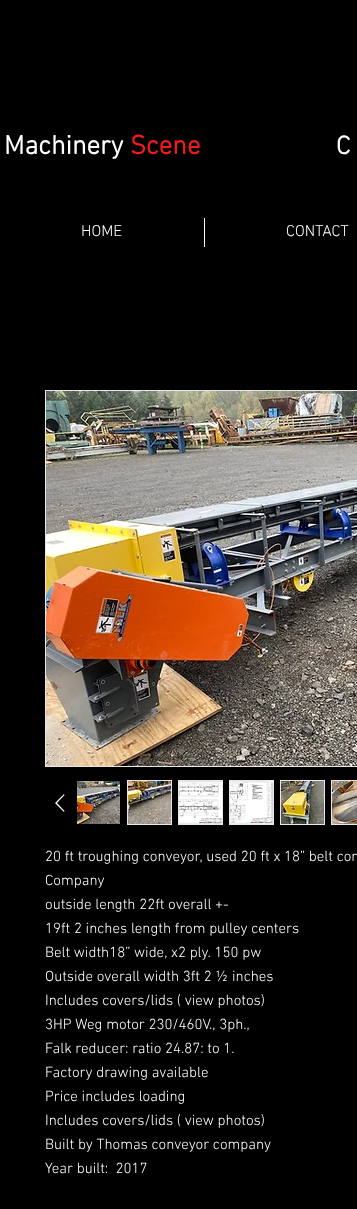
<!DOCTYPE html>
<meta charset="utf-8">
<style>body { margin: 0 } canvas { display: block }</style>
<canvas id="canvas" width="357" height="1209"></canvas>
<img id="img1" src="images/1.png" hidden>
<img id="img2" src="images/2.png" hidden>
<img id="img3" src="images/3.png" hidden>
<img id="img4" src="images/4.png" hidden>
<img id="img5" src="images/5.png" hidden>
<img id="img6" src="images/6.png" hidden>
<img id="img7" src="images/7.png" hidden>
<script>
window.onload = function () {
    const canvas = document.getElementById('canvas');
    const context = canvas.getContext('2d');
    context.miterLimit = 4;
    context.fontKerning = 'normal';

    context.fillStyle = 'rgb(0, 0, 0)';
    context.fillRect(0, 0, 357, 1209);
    context.fillStyle = 'rgb(255, 255, 255)';
    context.fillRect(204, 218, 1, 29);
    context.strokeStyle = 'rgb(232, 230, 230)';
    context.strokeRect(45.5, 390.5, 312, 376);
    context.drawImage(document.getElementById('img1'), 46, 391, 311, 375);
    context.beginPath();
    context.moveTo(64, 794);
    context.lineTo(64.5, 795);
    context.lineTo(57, 803);
    context.lineTo(64.5, 811);
    context.lineTo(64, 812);
    context.lineTo(55, 803);
    context.closePath();
    context.fill('evenodd');
    context.drawImage(document.getElementById('img2'), 77, 781, 43, 43);
    context.strokeRect(127.5, 780.5, 44, 44);
    context.drawImage(document.getElementById('img3'), 128, 781, 43, 43);
    context.strokeRect(178.5, 780.5, 44, 44);
    context.drawImage(document.getElementById('img4'), 179, 781, 43, 43);
    context.strokeRect(229.5, 780.5, 44, 44);
    context.drawImage(document.getElementById('img5'), 230, 781, 43, 43);
    context.strokeRect(280.5, 780.5, 44, 44);
    context.drawImage(document.getElementById('img6'), 281, 781, 43, 43);
    context.strokeRect(331.5, 780.5, 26, 44);
    context.drawImage(document.getElementById('img7'), 332, 781, 25, 43);
    context.font = 'bold 27px "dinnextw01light"';
    context.fillText('Machinery', 4, 154);
    context.fillStyle = 'rgb(247, 25, 25)';
    context.fillText('Scene', 130, 154);
    context.font = 'bold 26px "dinnextw01light"';
    context.fillStyle = 'rgb(255, 255, 255)';
    context.fillText('C', 336, 154);
    context.font = '300 16px "dinnextw01light"';
    context.fillText('HOME', 81, 236);
    context.fillText('CONTACT', 286, 236);
    context.font = '300 15px "dinnextw01light"';
    context.fillText('20 ft troughing conveyor, used 20 ft x 18” belt con', 45, 861);
    context.fillText('Company', 45, 885);
    context.fillText('outside length 22ft overall +-', 45, 909);
    context.fillText('19ft 2 inches length from pulley centers', 45, 933);
    context.fillText('Belt width18” wide, x2 ply. 150 pw', 45, 957);
    context.fillText('Outside overall width 3ft 2 ½ inches', 45, 981);
    context.fillText('Includes covers/lids ( view photos)', 45, 1005);
    context.fillText('3HP Weg motor 230/460V., 3ph.,', 45, 1029);
    context.fillText('Falk reducer: ratio 24.87: to 1.', 45, 1053);
    context.fillText('Factory drawing available', 45, 1077);
    context.fillText('Price includes loading', 45, 1101);
    context.fillText('Includes covers/lids ( view photos)', 45, 1125);
    context.fillText('Built by Thomas conveyor company', 45, 1149);
    context.fillText('Year built:  2017', 45, 1173);
};
</script>
